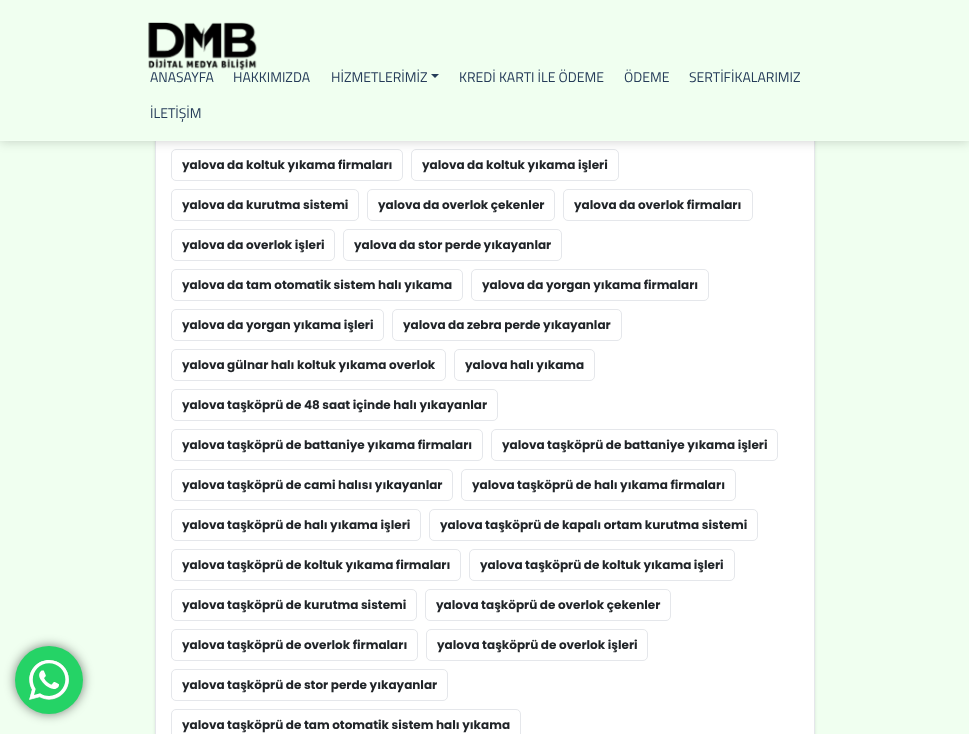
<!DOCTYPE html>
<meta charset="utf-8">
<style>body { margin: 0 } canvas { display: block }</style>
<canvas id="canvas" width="969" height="734"></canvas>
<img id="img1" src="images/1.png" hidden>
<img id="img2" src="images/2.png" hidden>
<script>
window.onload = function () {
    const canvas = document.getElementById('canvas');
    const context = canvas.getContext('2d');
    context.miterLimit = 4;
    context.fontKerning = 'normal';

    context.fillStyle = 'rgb(240, 255, 240)';
    context.fillRect(0, 0, 969, 734);
    context.fillStyle = 'rgba(0, 0, 0, 0.5)';
    context.filter = 'blur(5.5px)';
    context.beginPath();
    context.roundRect(15, 646, 68, 68, 34);
    context.fill();
    context.filter = 'none';
    context.fillStyle = 'rgb(37, 211, 102)';
    context.beginPath();
    context.arc(49, 680, 34, 0, 2 * Math.PI);
    context.fill();
    context.drawImage(document.getElementById('img1'), 29, 660, 40, 40);
    context.fillStyle = 'rgba(0, 0, 0, 0.1)';
    context.filter = 'blur(1.5px)';
    context.beginPath();
    context.roundRect(155, -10, 660, 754, 5);
    context.fill();
    context.filter = 'none';
    context.strokeStyle = 'rgb(229, 231, 235)';
    context.strokeRect(155.5, -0.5, 659, 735);
    context.fillStyle = 'rgb(255, 255, 255)';
    context.fillRect(156, 141, 658, 593);
    context.beginPath();
    context.roundRect(171.5, 149.5, 231, 31, 4.5);
    context.stroke();
    context.beginPath();
    context.roundRect(411.5, 149.5, 207, 31, 4.5);
    context.stroke();
    context.fillStyle = 'rgba(0, 0, 0, 0.2)';
    context.filter = 'blur(6px)';
    context.beginPath();
    context.rect(0, 0, 969, 141);
    context.fill();
    context.filter = 'none';
    context.fillStyle = 'rgb(240, 255, 240)';
    context.fillRect(0, 0, 969, 140);
    context.fillStyle = 'rgb(242, 255, 242)';
    context.fillRect(0, 140, 969, 1);
    context.drawImage(document.getElementById('img2'), 148, 22, 109, 48);
    context.fillStyle = 'rgb(37, 60, 89)';
    context.beginPath();
    context.moveTo(431, 74);
    context.lineTo(439, 74);
    context.lineTo(435, 78);
    context.closePath();
    context.fill();
    context.beginPath();
    context.roundRect(171.5, 189.5, 187, 31, 4.5);
    context.stroke();
    context.beginPath();
    context.roundRect(367.5, 189.5, 187, 31, 4.5);
    context.stroke();
    context.beginPath();
    context.roundRect(563.5, 189.5, 189, 31, 4.5);
    context.stroke();
    context.beginPath();
    context.roundRect(171.5, 229.5, 163, 31, 4.5);
    context.stroke();
    context.beginPath();
    context.roundRect(343.5, 229.5, 218, 31, 4.5);
    context.stroke();
    context.beginPath();
    context.roundRect(171.5, 269.5, 291, 31, 4.5);
    context.stroke();
    context.beginPath();
    context.roundRect(471.5, 269.5, 237, 31, 4.5);
    context.stroke();
    context.beginPath();
    context.roundRect(171.5, 309.5, 212, 31, 4.5);
    context.stroke();
    context.beginPath();
    context.roundRect(392.5, 309.5, 229, 31, 4.5);
    context.stroke();
    context.beginPath();
    context.roundRect(171.5, 349.5, 274, 31, 4.5);
    context.stroke();
    context.beginPath();
    context.roundRect(454.5, 349.5, 140, 31, 4.5);
    context.stroke();
    context.beginPath();
    context.roundRect(171.5, 389.5, 326, 31, 4.5);
    context.stroke();
    context.beginPath();
    context.roundRect(171.5, 429.5, 311, 31, 4.5);
    context.stroke();
    context.beginPath();
    context.roundRect(491.5, 429.5, 286, 31, 4.5);
    context.stroke();
    context.beginPath();
    context.roundRect(171.5, 469.5, 281, 31, 4.5);
    context.stroke();
    context.beginPath();
    context.roundRect(461.5, 469.5, 274, 31, 4.5);
    context.stroke();
    context.beginPath();
    context.roundRect(171.5, 509.5, 249, 31, 4.5);
    context.stroke();
    context.beginPath();
    context.roundRect(429.5, 509.5, 328, 31, 4.5);
    context.stroke();
    context.beginPath();
    context.roundRect(171.5, 549.5, 289, 31, 4.5);
    context.stroke();
    context.beginPath();
    context.roundRect(469.5, 549.5, 265, 31, 4.5);
    context.stroke();
    context.beginPath();
    context.roundRect(171.5, 589.5, 245, 31, 4.5);
    context.stroke();
    context.beginPath();
    context.roundRect(425.5, 589.5, 245, 31, 4.5);
    context.stroke();
    context.beginPath();
    context.roundRect(171.5, 629.5, 246, 31, 4.5);
    context.stroke();
    context.beginPath();
    context.roundRect(426.5, 629.5, 221, 31, 4.5);
    context.stroke();
    context.beginPath();
    context.roundRect(171.5, 669.5, 276, 31, 4.5);
    context.stroke();
    context.beginPath();
    context.roundRect(171.5, 709.5, 349, 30, 4.5);
    context.stroke();
    context.font = '14px Titillium Web';
    context.fillText('ANASAYFA', 150, 82);
    context.fillText('HAKKIMIZDA', 233, 82);
    context.fillText('HİZMETLERİMİZ', 331, 82);
    context.fillText('KREDİ KARTI İLE ÖDEME', 459, 82);
    context.fillText('ÖDEME', 624, 82);
    context.fillText('SERTİFİKALARIMIZ', 689, 82);
    context.fillText('İLETİŞİM', 150, 118);
    context.font = 'bold 12px Poppins';
    context.fillStyle = 'rgb(33, 37, 41)';
    context.fillText('yalova da koltuk yıkama firmaları', 182, 169);
    context.fillText('yalova da koltuk yıkama işleri', 422, 169);
    context.fillText('yalova da kurutma sistemi', 182, 209);
    context.fillText('yalova da overlok çekenler', 378, 209);
    context.fillText('yalova da overlok firmaları', 574, 209);
    context.fillText('yalova da overlok işleri', 182, 249);
    context.fillText('yalova da stor perde yıkayanlar', 354, 249);
    context.fillText('yalova da tam otomatik sistem halı yıkama', 182, 289);
    context.fillText('yalova da yorgan yıkama firmaları', 482, 289);
    context.fillText('yalova da yorgan yıkama işleri', 182, 329);
    context.fillText('yalova da zebra perde yıkayanlar', 403, 329);
    context.fillText('yalova gülnar halı koltuk yıkama overlok', 182, 369);
    context.fillText('yalova halı yıkama', 465, 369);
    context.fillText('yalova taşköprü de 48 saat içinde halı yıkayanlar', 182, 409);
    context.fillText('yalova taşköprü de battaniye yıkama firmaları', 182, 449);
    context.fillText('yalova taşköprü de battaniye yıkama işleri', 502, 449);
    context.fillText('yalova taşköprü de cami halısı yıkayanlar', 182, 489);
    context.fillText('yalova taşköprü de halı yıkama firmaları', 472, 489);
    context.fillText('yalova taşköprü de halı yıkama işleri', 182, 529);
    context.fillText('yalova taşköprü de kapalı ortam kurutma sistemi', 440, 529);
    context.fillText('yalova taşköprü de koltuk yıkama firmaları', 182, 569);
    context.fillText('yalova taşköprü de koltuk yıkama işleri', 480, 569);
    context.fillText('yalova taşköprü de kurutma sistemi', 182, 609);
    context.fillText('yalova taşköprü de overlok çekenler', 436, 609);
    context.fillText('yalova taşköprü de overlok firmaları', 182, 649);
    context.fillText('yalova taşköprü de overlok işleri', 437, 649);
    context.fillText('yalova taşköprü de stor perde yıkayanlar', 182, 689);
    context.fillText('yalova taşköprü de tam otomatik sistem halı yıkama', 182, 729);
};
</script>
